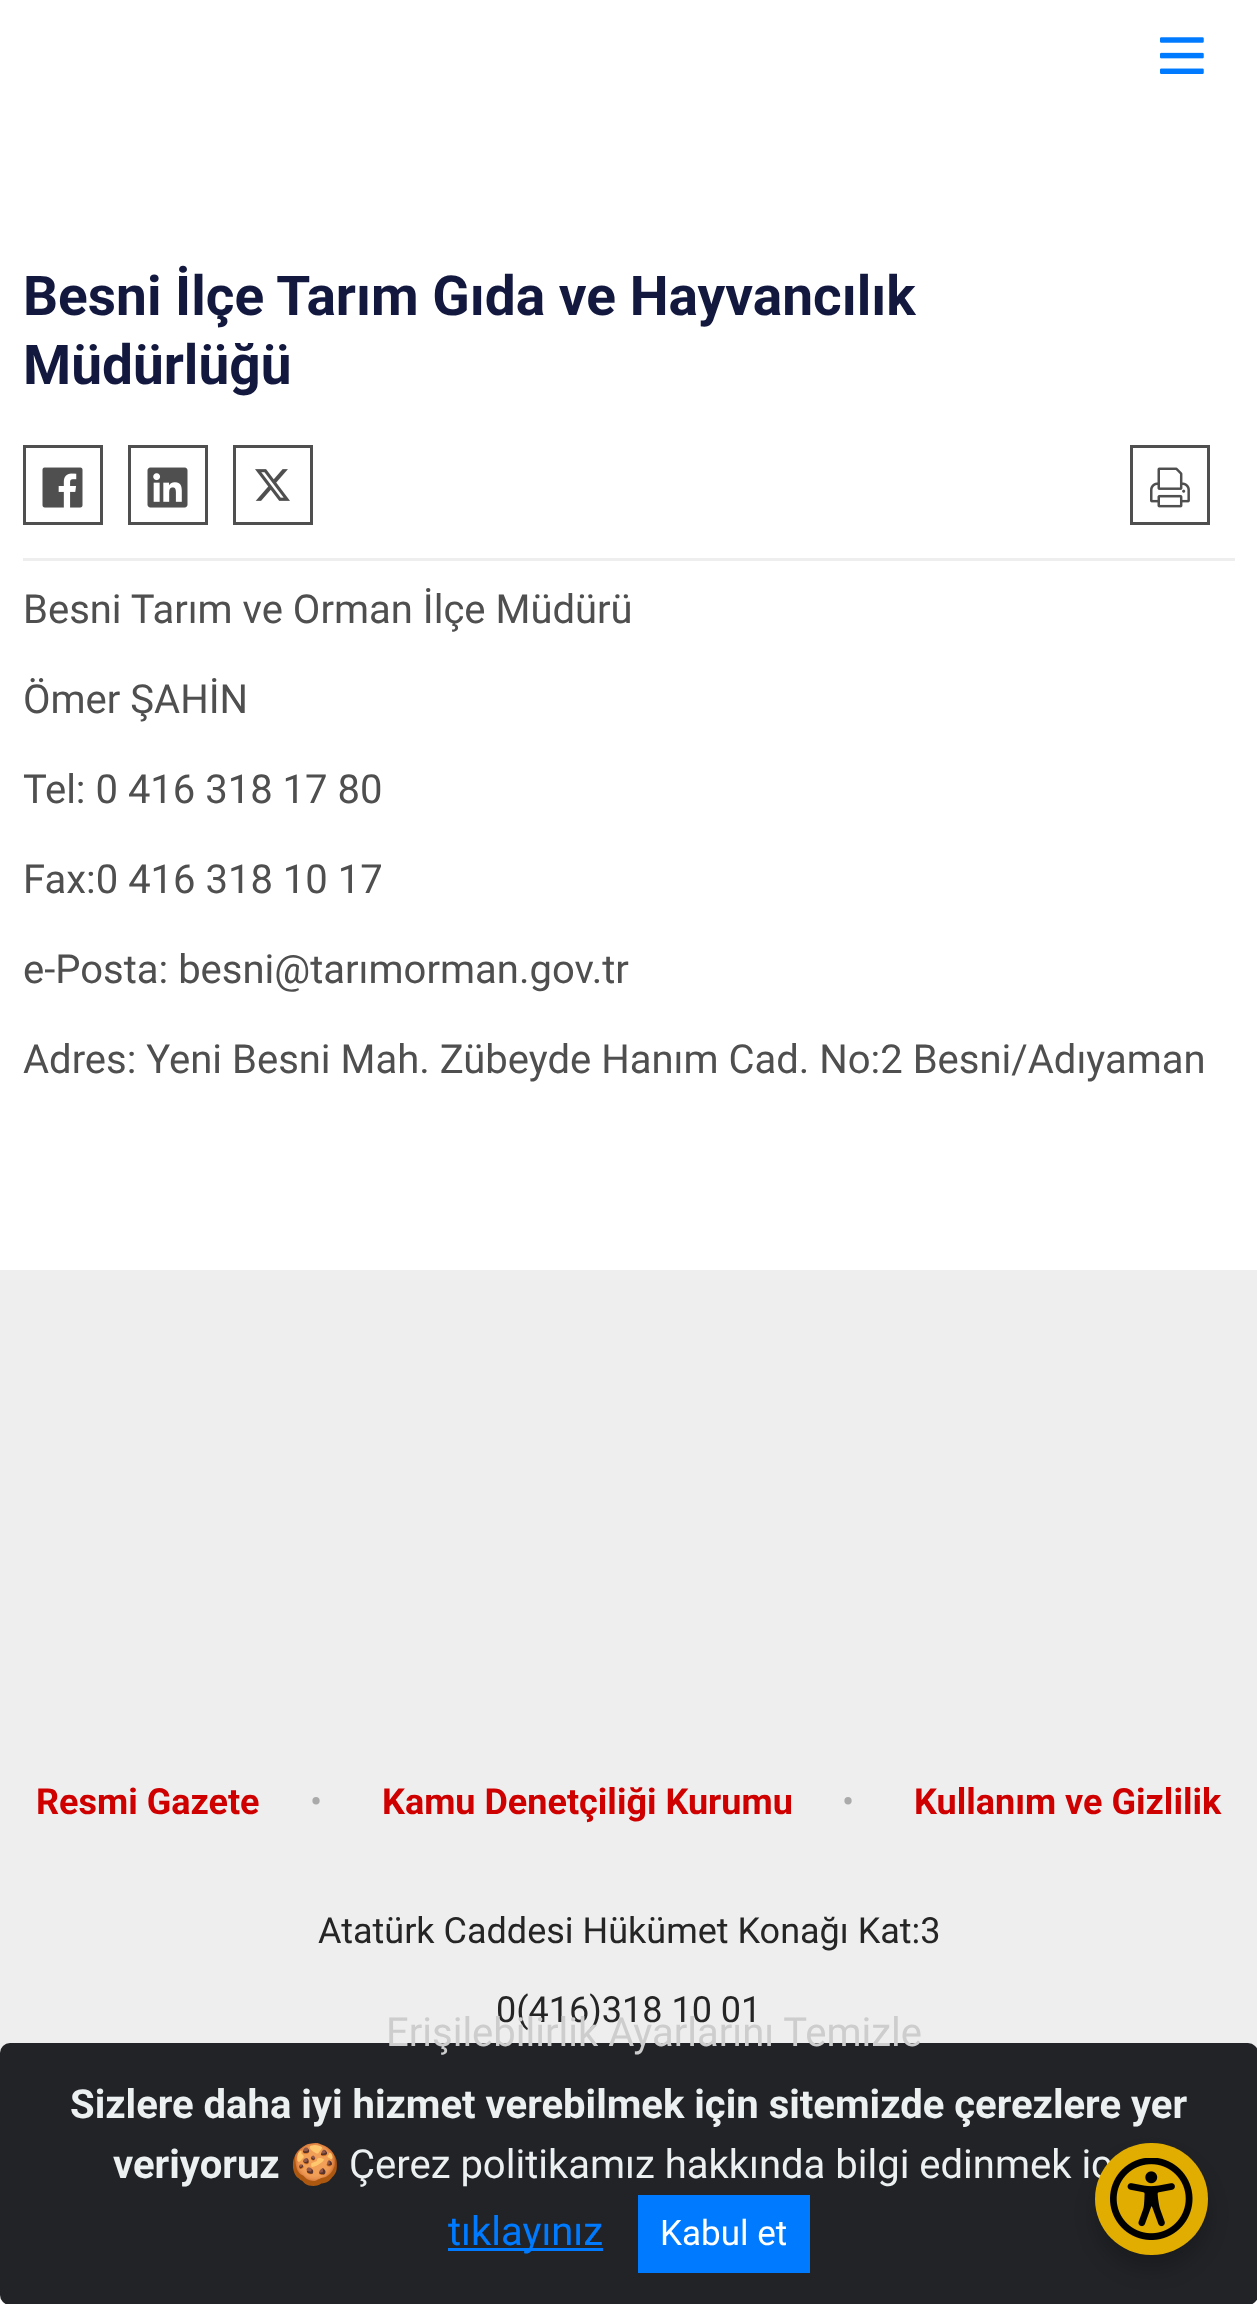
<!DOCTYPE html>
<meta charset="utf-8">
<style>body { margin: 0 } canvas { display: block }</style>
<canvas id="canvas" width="1257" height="2304"></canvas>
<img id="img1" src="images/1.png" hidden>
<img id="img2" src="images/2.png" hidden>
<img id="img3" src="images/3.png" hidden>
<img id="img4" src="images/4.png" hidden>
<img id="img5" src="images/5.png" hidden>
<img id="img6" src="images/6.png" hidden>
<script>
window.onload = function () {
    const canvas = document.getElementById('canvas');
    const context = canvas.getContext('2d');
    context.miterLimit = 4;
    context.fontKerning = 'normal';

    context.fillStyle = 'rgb(255, 255, 255)';
    context.fillRect(0, 0, 1257, 2304);
    context.drawImage(document.getElementById('img1'), 1160, 37, 44, 37);
    context.fillStyle = 'rgb(238, 238, 238)';
    context.fillRect(23, 558, 1212, 3);
    context.strokeStyle = 'rgb(79, 79, 79)';
    context.lineWidth = 3;
    context.strokeRect(24.5, 446.5, 77, 77);
    context.drawImage(document.getElementById('img2'), 42, 467, 41, 41);
    context.strokeRect(129.5, 446.5, 77, 77);
    context.drawImage(document.getElementById('img3'), 147, 467, 41, 41);
    context.strokeRect(234.5, 446.5, 77, 77);
    context.drawImage(document.getElementById('img4'), 255, 469, 35, 32);
    context.strokeRect(1131.5, 446.5, 77, 77);
    context.drawImage(document.getElementById('img5'), 1150, 467, 40, 41);
    context.fillRect(0, 1270, 1257, 783);
    context.fillStyle = 'rgb(33, 35, 39)';
    context.beginPath();
    context.roundRect(0, 2043, 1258, 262, 10);
    context.fill();
    context.fillStyle = 'rgba(0, 0, 0, 0.2)';
    context.filter = 'blur(10px)';
    context.beginPath();
    context.roundRect(1095, 2158, 113, 112, 56);
    context.fill();
    context.filter = 'none';
    context.fillStyle = 'rgb(0, 123, 255)';
    context.fillRect(448, 2248, 155, 3);
    context.fillRect(638, 2195, 172, 78);
    context.font = 'bold 55px Roboto';
    context.fillStyle = 'rgb(19, 24, 62)';
    context.fillText('Besni İlçe Tarım Gıda ve Hayvancılık', 23, 315);
    context.fillText('Müdürlüğü', 23, 384);
    context.font = '40px Roboto';
    context.fillStyle = 'rgb(79, 79, 79)';
    context.fillText('Besni Tarım ve Orman İlçe Müdürü', 23, 623);
    context.fillText('Ömer ŞAHİN', 23, 713);
    context.fillText('Tel: 0 416 318 17 80', 23, 803);
    context.fillText('Fax:0 416 318 10 17', 23, 893);
    context.fillText('e-Posta: besni@tarımorman.gov.tr', 23, 983);
    context.fillText('Adres: Yeni Besni Mah. Zübeyde Hanım Cad. No:2 Besni/Adıyaman', 23, 1073);
    context.font = 'bold 36px Roboto';
    context.fillStyle = 'rgb(206, 0, 0)';
    context.fillText('Resmi Gazete', 36, 1814);
    context.font = '36px Roboto';
    context.fillStyle = 'rgb(170, 170, 170)';
    context.fillText('•', 310, 1814);
    context.font = 'bold 36px Roboto';
    context.fillStyle = 'rgb(206, 0, 0)';
    context.fillText('Kamu Denetçiliği Kurumu', 382, 1814);
    context.font = '36px Roboto';
    context.fillStyle = 'rgb(170, 170, 170)';
    context.fillText('•', 842, 1814);
    context.font = 'bold 36px Roboto';
    context.fillStyle = 'rgb(206, 0, 0)';
    context.fillText('Kullanım ve Gizlilik', 914, 1814);
    context.font = '36px Roboto';
    context.fillStyle = 'rgb(37, 37, 37)';
    context.fillText('Atatürk Caddesi Hükümet Konağı Kat:3', 318, 1943);
    context.fillText('0(416)318 10 01', 496, 2022);
    context.font = '40px Roboto';
    context.fillStyle = 'rgb(205, 205, 205)';
    context.fillText('Erişilebilirlik Ayarlarını Temizle', 386, 2046);
    context.font = 'bold 40px Roboto';
    context.fillStyle = 'rgb(236, 240, 241)';
    context.fillText('Sizlere daha iyi hizmet verebilmek için sitemizde çerezlere yer', 70, 2118);
    context.fillText('veriyoruz', 113, 2178);
    context.font = '40px Noto Color Emoji';
    context.fillText('🍪', 290, 2178);
    context.font = '40px Roboto';
    context.fillText('Çerez politikamız hakkında bilgi edinmek iç', 349, 2178);
    context.fillStyle = 'rgb(225, 173, 1)';
    context.beginPath();
    context.roundRect(1095, 2143, 113, 112, 56);
    context.fill();
    context.drawImage(document.getElementById('img6'), 1110, 2158, 83, 82);
    context.fillStyle = 'rgb(0, 123, 255)';
    context.fillText('tıklayınız', 448, 2245);
    context.font = '35px Roboto';
    context.fillStyle = 'rgb(255, 255, 255)';
    context.fillText('Kabul et', 660, 2245);
};
</script>
